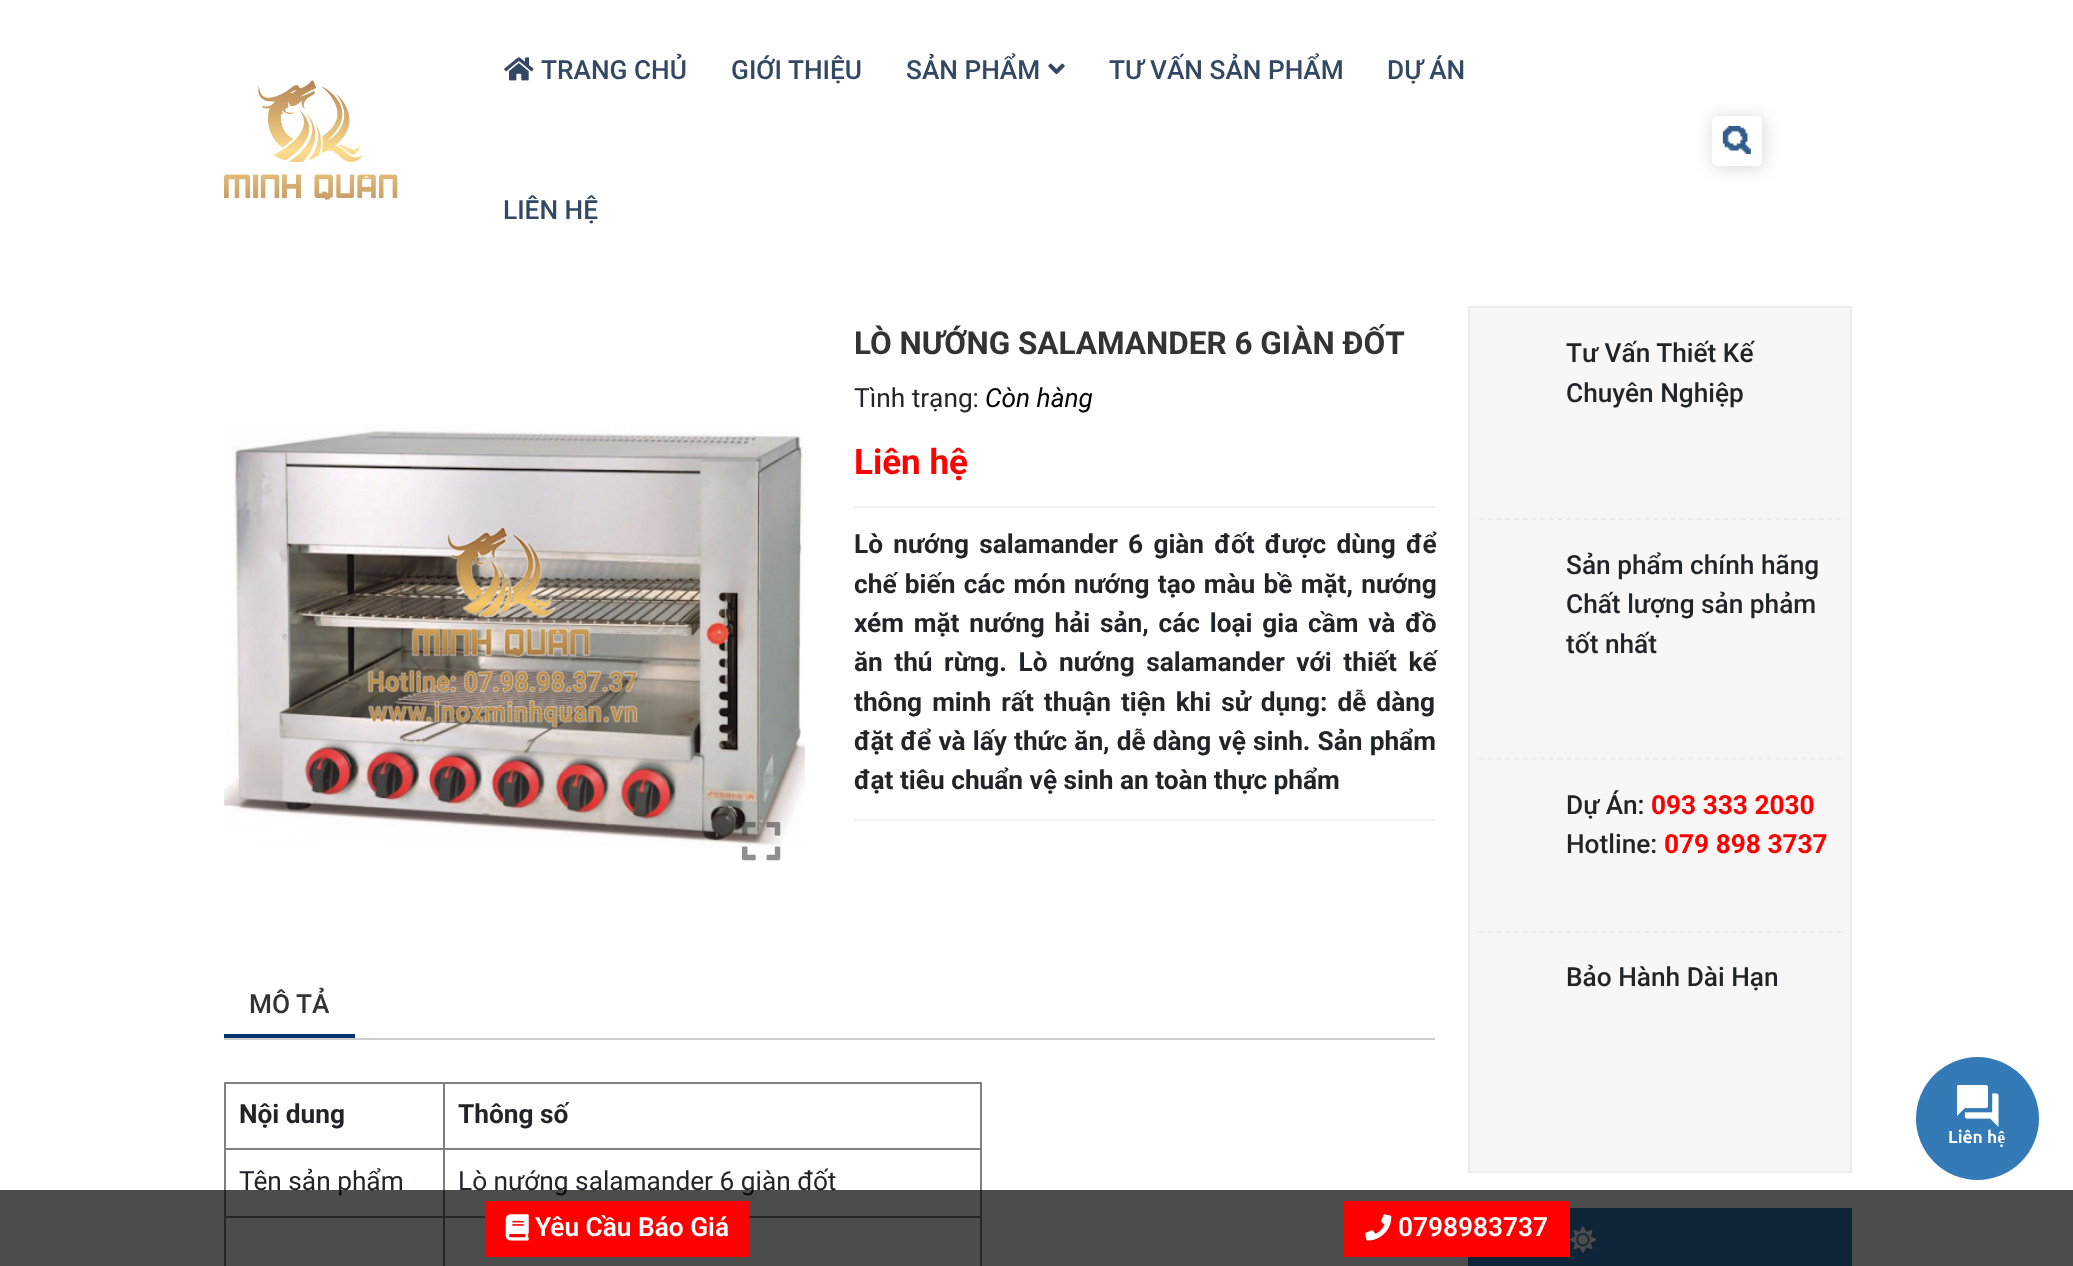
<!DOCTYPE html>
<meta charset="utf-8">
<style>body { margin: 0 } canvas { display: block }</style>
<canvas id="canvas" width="2073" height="1266"></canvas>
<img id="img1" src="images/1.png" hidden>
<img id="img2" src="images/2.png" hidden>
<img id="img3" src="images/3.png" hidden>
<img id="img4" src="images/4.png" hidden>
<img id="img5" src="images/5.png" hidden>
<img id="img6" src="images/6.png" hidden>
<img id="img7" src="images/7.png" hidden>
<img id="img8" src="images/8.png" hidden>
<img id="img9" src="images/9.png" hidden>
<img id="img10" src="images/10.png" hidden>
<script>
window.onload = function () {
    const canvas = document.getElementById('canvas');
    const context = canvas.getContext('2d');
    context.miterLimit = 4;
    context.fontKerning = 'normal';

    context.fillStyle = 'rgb(255, 255, 255)';
    context.fillRect(0, 0, 2073, 1266);
    context.drawImage(document.getElementById('img1'), 224, 80, 174, 120);
    context.drawImage(document.getElementById('img2'), 504, 57, 30, 24);
    context.drawImage(document.getElementById('img3'), 1048, 63, 17, 12);
    context.fillStyle = 'rgba(0, 0, 0, 0.15)';
    context.filter = 'blur(9px)';
    context.beginPath();
    context.roundRect(1713, 117, 51, 51, 5);
    context.fill();
    context.filter = 'none';
    context.fillStyle = 'rgb(255, 255, 255)';
    context.beginPath();
    context.roundRect(1712, 116, 50, 50, 5);
    context.fill();
    context.drawImage(document.getElementById('img4'), 1722, 126, 29, 28);
    context.drawImage(document.getElementById('img5'), 224, 424, 581, 424);
    context.drawImage(document.getElementById('img6'), 742, 821, 39, 40);
    context.fillStyle = 'rgb(242, 242, 242)';
    context.fillRect(854, 506, 581, 2);
    context.fillRect(854, 819, 581, 2);
    context.fillStyle = 'rgb(204, 204, 204)';
    context.fillRect(224, 1038, 1211, 2);
    context.fillStyle = 'rgb(0, 52, 113)';
    context.fillRect(224, 1034, 131, 4);
    context.fillStyle = 'rgb(128, 128, 128)';
    context.fillRect(224, 1082, 758, 2);
    context.fillRect(980, 1082, 2, 184);
    context.fillRect(224, 1082, 2, 184);
    context.fillRect(443, 1148, 539, 2);
    context.fillRect(443, 1216, 539, 2);
    context.fillRect(443, 1216, 2, 50);
    context.fillRect(224, 1216, 221, 2);
    context.fillRect(443, 1148, 2, 70);
    context.fillRect(224, 1148, 221, 2);
    context.fillRect(443, 1082, 2, 68);
    context.fillStyle = 'rgb(247, 247, 247)';
    context.beginPath();
    context.rect(1469, 307, 382, 865);
    context.fill();
    context.strokeStyle = 'rgb(236, 236, 236)';
    context.lineWidth = 2;
    context.stroke();
    context.beginPath();
    context.moveTo(1479, 519);
    context.lineTo(1841, 519);
    context.lineWidth = 1.8;
    context.setLineDash([5.25, 3.46]);
    context.stroke();
    context.beginPath();
    context.moveTo(1479, 758.5);
    context.lineTo(1841, 758.5);
    context.stroke();
    context.beginPath();
    context.moveTo(1479, 932);
    context.lineTo(1841, 932);
    context.stroke();
    context.fillStyle = 'rgb(51, 122, 183)';
    context.fillRect(1468, 1208, 384, 58);
    context.drawImage(document.getElementById('img7'), 1570, 1226, 26, 27);
    context.beginPath();
    context.arc(1977.5, 1118.5, 61.5, 0, 2 * Math.PI);
    context.fill();
    context.drawImage(document.getElementById('img8'), 1957, 1085, 42, 42);
    context.font = '500 26.25px Roboto';
    context.fillStyle = 'rgb(51, 72, 98)';
    context.fillText('TRANG CHỦ', 541, 79);
    context.fillText('GIỚI THIỆU', 731, 79);
    context.fillText('SẢN PHẨM', 906, 79);
    context.fillText('TƯ VẤN SẢN PHẨM', 1109, 79);
    context.fillText('DỰ ÁN', 1387, 79);
    context.fillText('LIÊN HỆ', 503, 219);
    context.font = 'bold 31.5px Roboto';
    context.fillStyle = 'rgb(51, 51, 51)';
    context.fillText('LÒ NƯỚNG SALAMANDER 6 GIÀN ĐỐT', 854, 354);
    context.font = '26.25px Roboto';
    context.fillStyle = 'rgb(33, 37, 41)';
    context.fillText('Tình trạng:', 854, 407);
    context.font = 'italic 26.25px Roboto';
    context.fillStyle = 'rgb(0, 0, 0)';
    context.fillText('Còn hàng', 985, 407);
    context.font = 'bold 35px Roboto';
    context.fillStyle = 'rgb(255, 0, 0)';
    context.fillText('Liên hệ', 854, 474);
    context.wordSpacing = '3.75px';
    context.font = 'bold 26.25px Roboto';
    context.fillStyle = 'rgb(33, 37, 41)';
    context.fillText('Lò nướng salamander 6 giàn đốt được dùng để', 854, 553);
    context.wordSpacing = '1.75px';
    context.fillText('chế biến các món nướng tạo màu bề mặt, nướng', 854, 593);
    context.wordSpacing = '3.25px';
    context.fillText('xém mặt nướng hải sản, các loại gia cầm và đồ', 854, 632);
    context.wordSpacing = '5px';
    context.fillText('ăn thú rừng. Lò nướng salamander với thiết kế', 854, 671);
    context.wordSpacing = '3.5px';
    context.fillText('thông minh rất thuận tiện khi sử dụng: dễ dàng', 854, 711);
    context.wordSpacing = '0.6px';
    context.fillText('đặt để và lấy thức ăn, dễ dàng vệ sinh. Sản phẩm', 854, 750);
    context.wordSpacing = '0px';
    context.fillText('đạt tiêu chuẩn vệ sinh an toàn thực phẩm', 854, 789);
    context.font = '500 26.25px Roboto';
    context.fillStyle = 'rgb(51, 51, 51)';
    context.fillText('MÔ TẢ', 249, 1013);
    context.font = 'bold 26.25px Roboto';
    context.fillStyle = 'rgb(33, 37, 41)';
    context.fillText('Nội dung', 239, 1123);
    context.fillText('Thông số', 458, 1123);
    context.font = '26.25px Roboto';
    context.fillText('Tên sản phẩm', 239, 1190);
    context.fillText('Lò nướng salamander 6 giàn đốt', 458, 1190);
    context.font = '500 26.25px Roboto';
    context.fillText('Tư Vấn Thiết Kế', 1566, 362);
    context.fillText('Chuyên Nghiệp', 1566, 402);
    context.fillText('Sản phẩm chính hãng', 1566, 574);
    context.fillText('Chất lượng sản phảm', 1566, 613);
    context.fillText('tốt nhất', 1566, 653);
    context.fillText('Dự Án:', 1566, 814);
    context.font = 'bold 26.25px Roboto';
    context.fillStyle = 'rgb(255, 0, 0)';
    context.fillText('093 333 2030', 1651, 814);
    context.font = '500 26.25px Roboto';
    context.fillStyle = 'rgb(33, 37, 41)';
    context.fillText('Hotline:', 1566, 853);
    context.font = 'bold 26.25px Roboto';
    context.fillStyle = 'rgb(255, 0, 0)';
    context.fillText('079 898 3737', 1664, 853);
    context.font = '500 26.25px Roboto';
    context.fillStyle = 'rgb(33, 37, 41)';
    context.fillText('Bảo Hành Dài Hạn', 1566, 986);
    context.font = 'bold 17.5px Ubuntu';
    context.fillStyle = 'rgb(255, 255, 255)';
    context.fillText('Liên hệ', 1948, 1143);
    context.fillStyle = 'rgba(0, 0, 0, 0.7)';
    context.fillRect(0, 1190, 2073, 76);
    context.fillStyle = 'rgb(255, 0, 0)';
    context.fillRect(485, 1201, 264, 56);
    context.drawImage(document.getElementById('img9'), 505, 1214, 24, 27);
    context.font = '600 26.25px Roboto';
    context.fillStyle = 'rgb(255, 255, 255)';
    context.fillText('Yêu Cầu Báo Giá', 535, 1236);
    context.fillStyle = 'rgb(255, 0, 0)';
    context.fillRect(1344, 1201, 226, 56);
    context.drawImage(document.getElementById('img10'), 1365, 1214, 27, 27);
    context.fillStyle = 'rgb(255, 255, 255)';
    context.fillText('0798983737', 1398, 1236);
};
</script>
